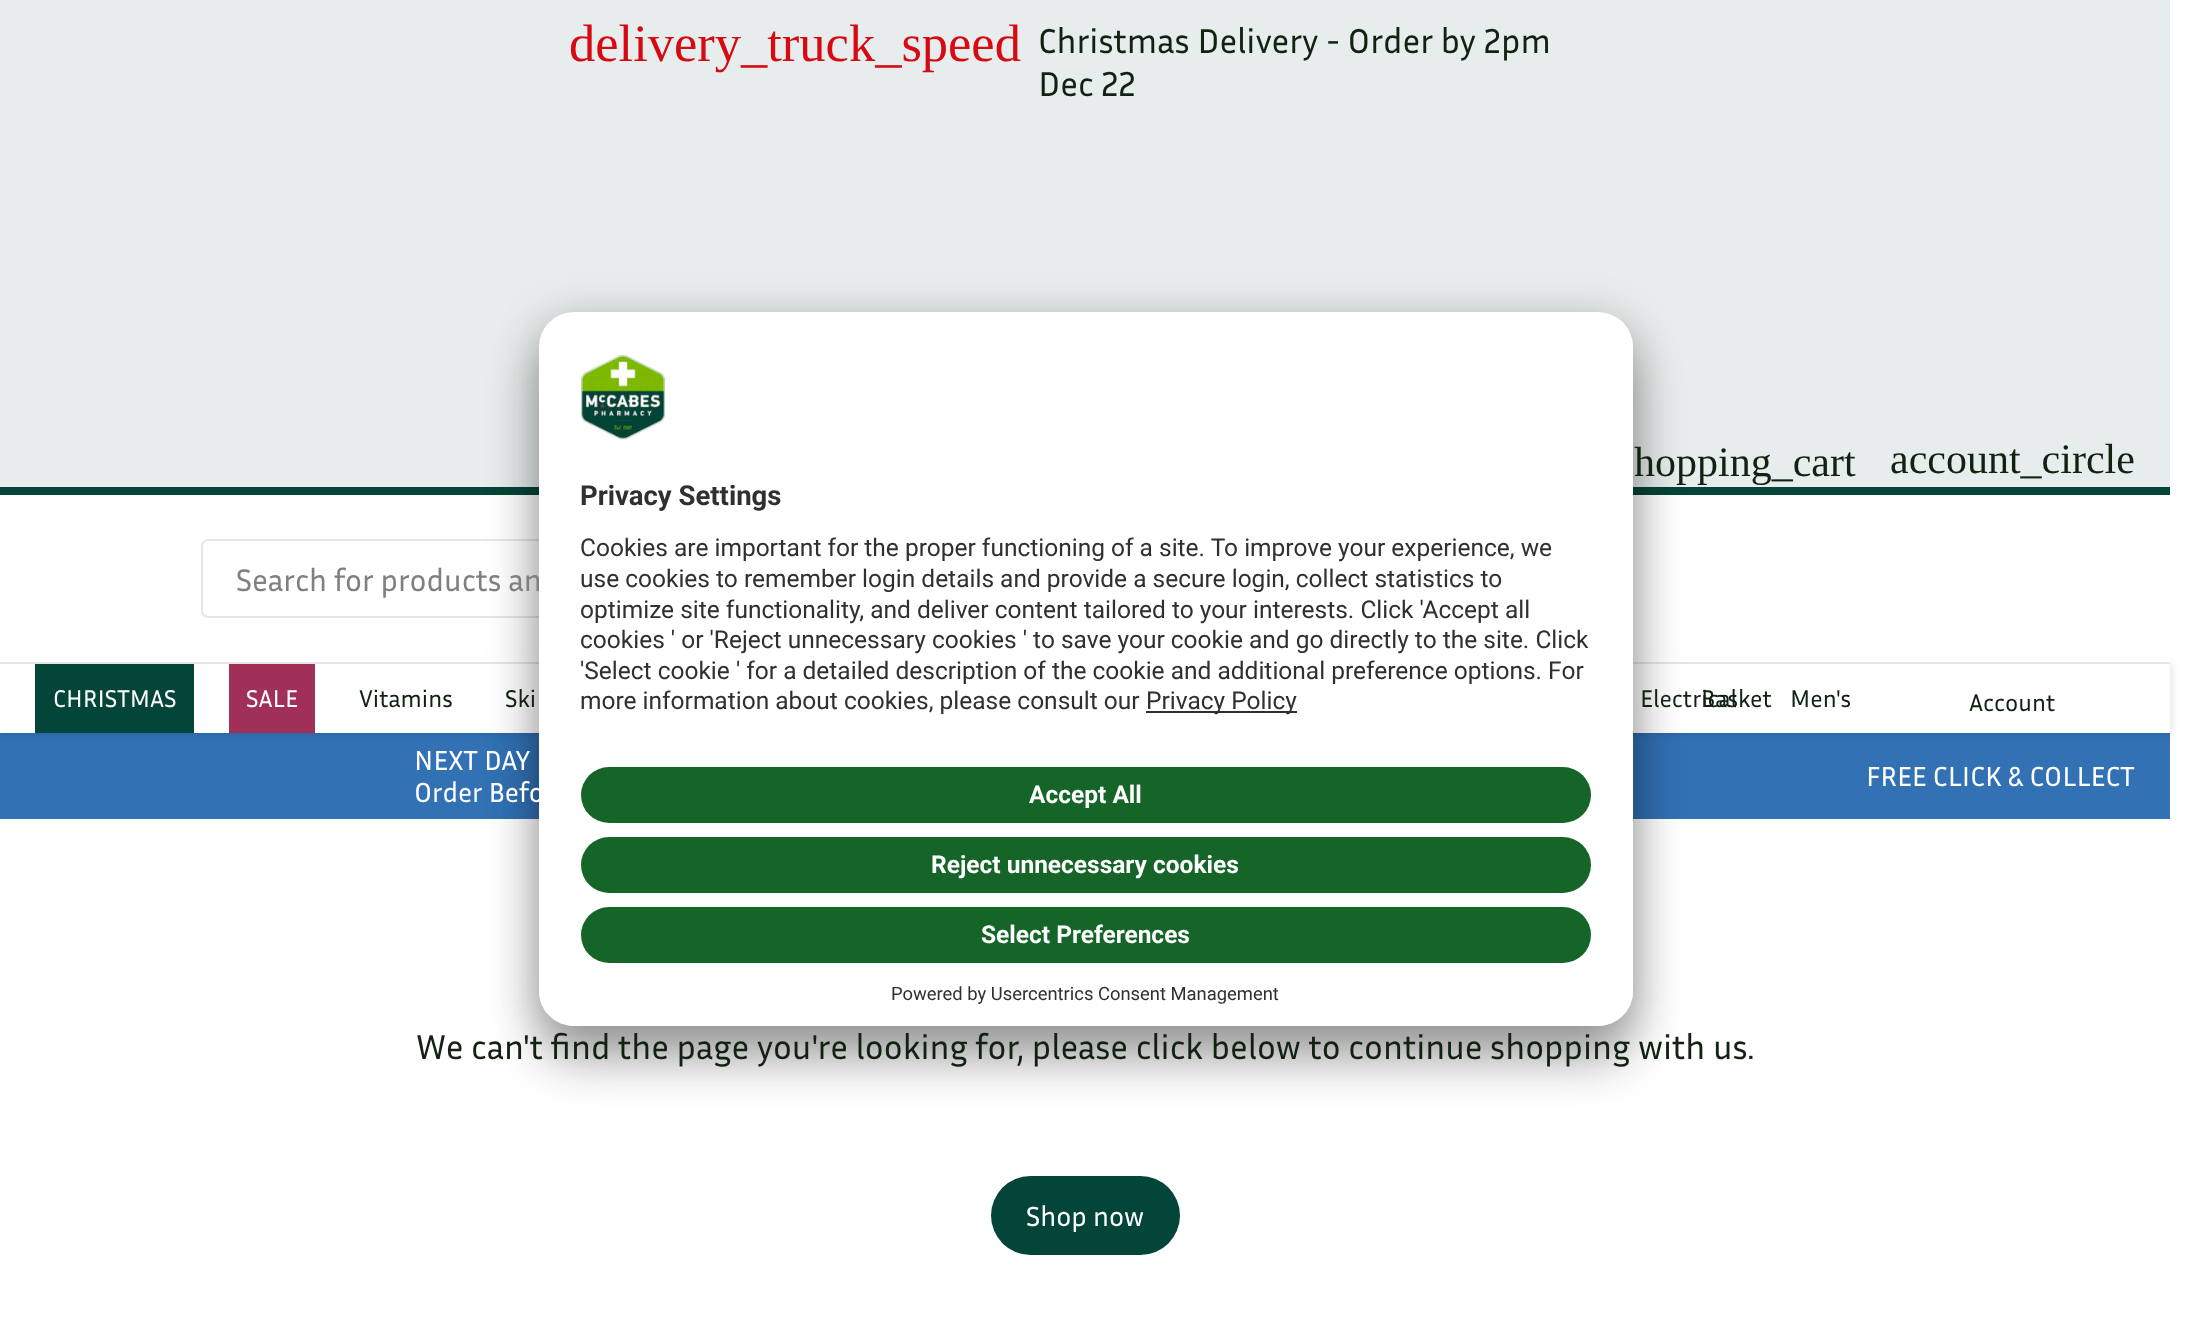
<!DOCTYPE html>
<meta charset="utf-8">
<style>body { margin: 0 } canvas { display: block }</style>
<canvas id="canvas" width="2196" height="1337"></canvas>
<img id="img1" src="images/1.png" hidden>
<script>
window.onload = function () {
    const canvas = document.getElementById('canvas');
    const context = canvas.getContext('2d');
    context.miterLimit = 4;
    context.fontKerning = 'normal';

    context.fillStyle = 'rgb(255, 255, 255)';
    context.fillRect(0, 0, 2196, 1337);
    context.fillStyle = 'rgb(231, 237, 236)';
    context.fillRect(0, 0, 2170, 487);
    context.fillStyle = 'rgb(3, 69, 56)';
    context.fillRect(0, 487, 2170, 8);
    context.fillStyle = 'rgb(49, 113, 180)';
    context.fillRect(0, 733, 2170, 86);
    context.fillStyle = 'rgba(0, 0, 0, 0.15)';
    context.filter = 'blur(4.5px)';
    context.beginPath();
    context.rect(0, 663, 2170, 70);
    context.fill();
    context.filter = 'none';
    context.fillStyle = 'rgb(255, 255, 255)';
    context.fillRect(0, 656, 2170, 6);
    context.fillStyle = 'rgb(230, 230, 230)';
    context.fillRect(0, 662, 2170, 2);
    context.beginPath();
    context.roundRect(202, 540, 1146, 77, 6);
    context.strokeStyle = 'rgb(230, 230, 230)';
    context.lineWidth = 2;
    context.stroke();
    context.fillStyle = 'rgb(255, 255, 255)';
    context.fillRect(0, 664, 2170, 69);
    context.fillStyle = 'rgb(3, 69, 56)';
    context.fillRect(35, 664, 159, 69);
    context.fillStyle = 'rgb(161, 48, 89)';
    context.fillRect(229, 664, 86, 69);
    context.fillStyle = 'rgba(0, 0, 0, 0.3)';
    context.filter = 'blur(24.5px)';
    context.beginPath();
    context.roundRect(539, 347, 1094, 714, 35);
    context.fill();
    context.filter = 'none';
    context.fillStyle = 'rgba(0, 0, 0, 0.22)';
    context.filter = 'blur(23px)';
    context.beginPath();
    context.roundRect(539, 320, 1094, 714, 35);
    context.fill();
    context.filter = 'none';
    context.fillStyle = 'rgb(3, 69, 56)';
    context.beginPath();
    context.roundRect(991, 1176, 189, 79, 39.5);
    context.fill();
    context.font = '52.5px Liberation Serif';
    context.fillStyle = 'rgb(215, 9, 18)';
    context.fillText('delivery_truck_speed', 569, 61);
    context.font = '35px Inria Sans';
    context.fillStyle = 'rgb(17, 34, 17)';
    context.fillText('Christmas Delivery - Order by 2pm', 1038, 53);
    context.fillText('Dec 22', 1038, 96);
    context.font = '31.5px Inria Sans';
    context.fillStyle = 'rgb(128, 128, 128)';
    context.fillText('Search for products an', 236, 591);
    context.font = '42px Liberation Serif';
    context.fillStyle = 'rgb(17, 34, 17)';
    context.fillText('hopping_cart', 1634, 476);
    context.fillText('account_circle', 1890, 473);
    context.font = '24.5px Inria Sans';
    context.fillText('Account', 1969, 711);
    context.fillStyle = 'rgb(255, 255, 255)';
    context.fillText('CHRISTMAS', 53, 707);
    context.fillText('SALE', 246, 707);
    context.fillStyle = 'rgb(17, 34, 17)';
    context.fillText('Vitamins', 359, 707);
    context.fillText('Ski', 505, 707);
    context.fillText('Electrical', 1640, 707);
    context.fillText('Basket', 1701, 707);
    context.fillText('Men\'s', 1790, 707);
    context.font = '28px Inria Sans';
    context.fillStyle = 'rgb(255, 255, 255)';
    context.fillText('NEXT DAY', 414, 770);
    context.fillText('Order Befo', 414, 802);
    context.fillText('FREE CLICK & COLLECT', 1866, 786);
    context.beginPath();
    context.roundRect(539, 312, 1094, 714, 35);
    context.fill();
    context.save();
    context.beginPath();
    context.roundRect(539, 312, 1094, 714, 35);
    context.clip();
    context.beginPath();
    context.roundRect(539, 312, 1094, 434, [35, 35, 0, 0]);
    context.clip();
    context.fillRect(539, 313, 1094, 433);
    context.restore();
    context.drawImage(document.getElementById('img1'), 581, 355, 85, 85);
    context.font = 'bold 27.5px Roboto';
    context.fillStyle = 'rgb(48, 48, 48)';
    context.fillText('Privacy Settings', 580, 505);
    context.font = '24.5px Roboto';
    context.fillText('Cookies are important for the proper functioning of a site. To improve your experience, we', 580, 556);
    context.fillText('use cookies to remember login details and provide a secure login, collect statistics to', 580, 587);
    context.fillText('optimize site functionality, and deliver content tailored to your interests. Click \'Accept all', 580, 618);
    context.fillText('cookies \' or \'Reject unnecessary cookies \' to save your cookie and go directly to the site. Click', 580, 648);
    context.fillText('\'Select cookie \' for a detailed description of the cookie and additional preference options. For', 580, 679);
    context.fillText('more information about cookies, please consult our', 580, 709);
    context.fillRect(1146, 711, 151, 2);
    context.fillText('Privacy Policy', 1146, 709);
    context.fillStyle = 'rgb(255, 255, 255)';
    context.beginPath();
    context.roundRect(539, 746, 1094, 280, [0, 0, 35, 35]);
    context.fill();
    context.fillStyle = 'rgb(21, 101, 40)';
    context.beginPath();
    context.roundRect(581, 767, 1010, 56, 28);
    context.fill();
    context.font = 'bold 24.5px Roboto';
    context.fillStyle = 'rgb(255, 255, 255)';
    context.fillText('Accept All', 1029, 803);
    context.fillStyle = 'rgb(21, 101, 40)';
    context.beginPath();
    context.roundRect(581, 837, 1010, 56, 28);
    context.fill();
    context.fillStyle = 'rgb(255, 255, 255)';
    context.fillText('Reject unnecessary cookies', 931, 873);
    context.fillStyle = 'rgb(21, 101, 40)';
    context.beginPath();
    context.roundRect(581, 907, 1010, 56, 28);
    context.fill();
    context.fillStyle = 'rgb(255, 255, 255)';
    context.fillText('Select Preferences', 981, 943);
    context.font = '18.4px Roboto';
    context.fillStyle = 'rgb(48, 48, 48)';
    context.fillText('Powered by Usercentrics Consent Management', 891, 1000);
    context.font = '35px Inria Sans';
    context.fillStyle = 'rgb(17, 34, 17)';
    context.fillText('We can\'t find the page you\'re looking for, please click below to continue shopping with us.', 416, 1059);
    context.font = '28px Inria Sans';
    context.fillStyle = 'rgb(255, 255, 255)';
    context.fillText('Shop now', 1026, 1226);
};
</script>
